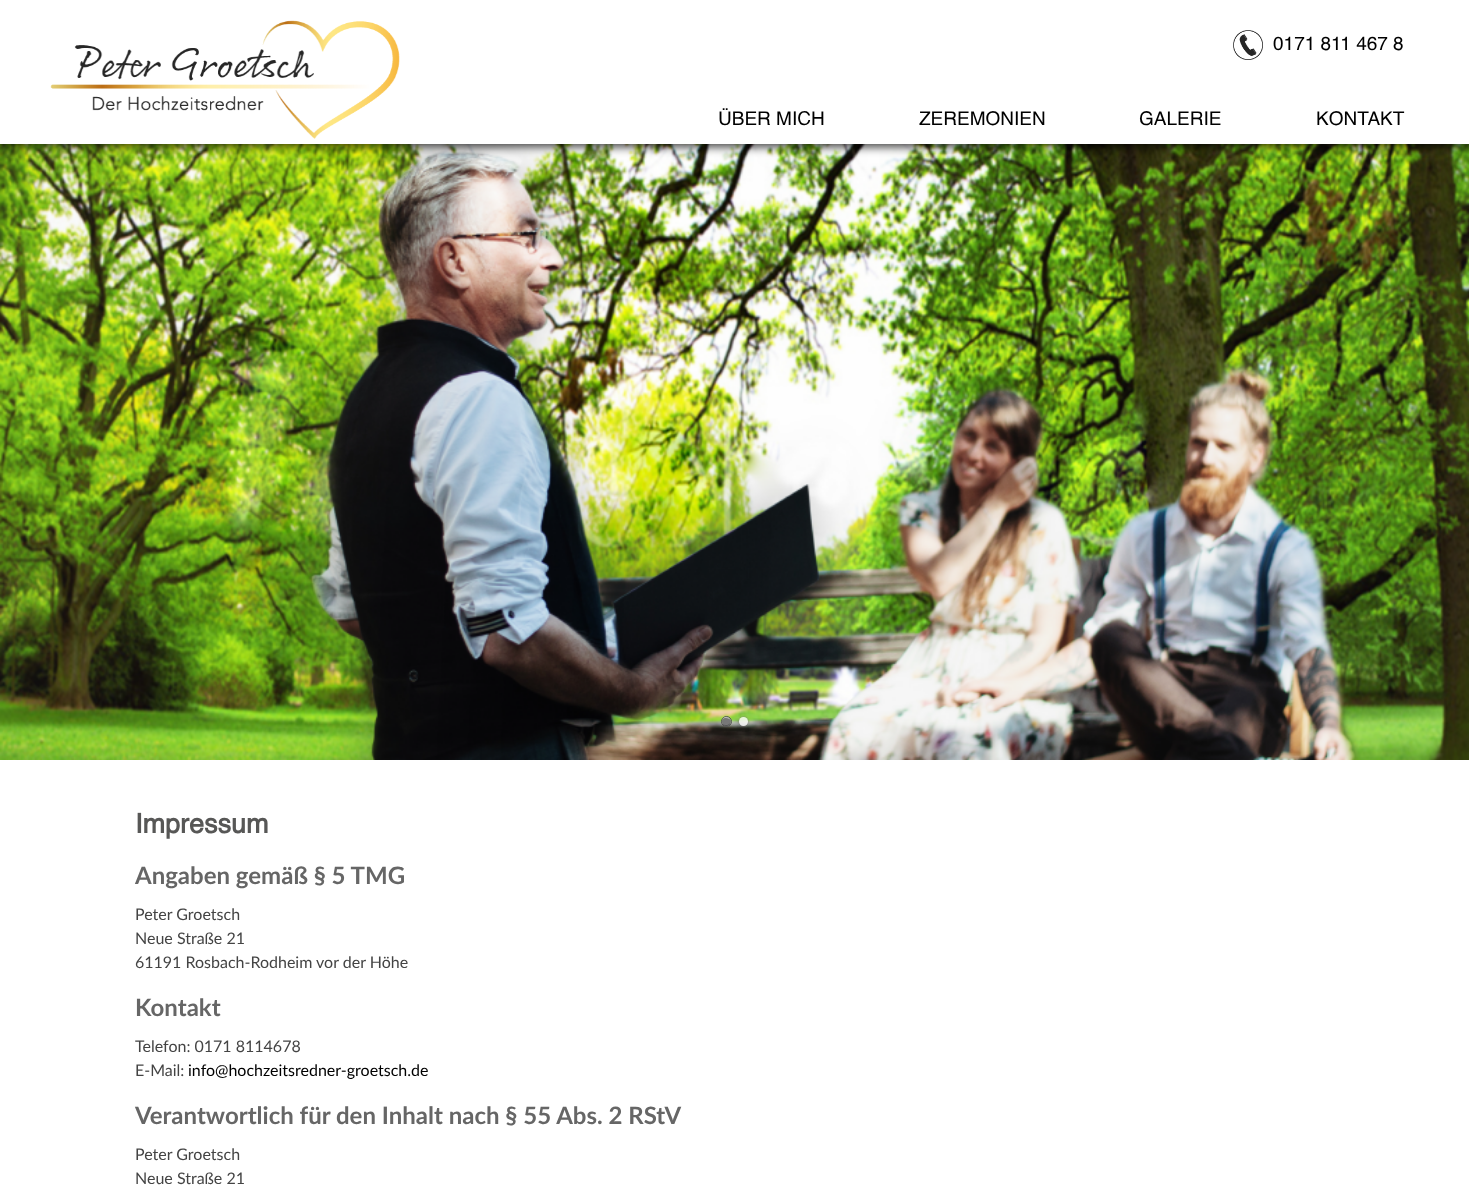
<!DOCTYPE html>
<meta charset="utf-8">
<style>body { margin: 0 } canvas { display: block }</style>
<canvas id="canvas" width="1469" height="1203"></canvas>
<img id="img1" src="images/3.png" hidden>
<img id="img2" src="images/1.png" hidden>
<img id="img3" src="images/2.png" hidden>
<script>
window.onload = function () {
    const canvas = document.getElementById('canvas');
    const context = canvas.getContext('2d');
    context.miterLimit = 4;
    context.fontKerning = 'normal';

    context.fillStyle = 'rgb(255, 255, 255)';
    context.fillRect(0, 0, 1469, 1203);
    context.drawImage(document.getElementById('img1'), 0, 144, 1469, 616);
    context.fillStyle = 'rgba(0, 0, 0, 0.75)';
    context.filter = 'blur(5px)';
    context.beginPath();
    context.rect(0, 3, 1469, 144);
    context.fill();
    context.filter = 'none';
    context.fillStyle = 'rgb(255, 255, 255)';
    context.fillRect(0, 0, 1469, 144);
    context.drawImage(document.getElementById('img2'), 50, 20, 350, 119);
    context.drawImage(document.getElementById('img3'), 1233, 30, 30, 30);
    context.beginPath();
    context.arc(726.5, 721.5, 5, 0, 2 * Math.PI);
    context.strokeStyle = 'rgb(85, 85, 85)';
    context.stroke();
    context.fillStyle = 'rgb(119, 119, 119)';
    context.beginPath();
    context.arc(726.5, 721.5, 4.5, 0, 2 * Math.PI);
    context.fill();
    context.fillStyle = 'rgba(0, 0, 0, 0.3)';
    context.beginPath();
    context.moveTo(730.5, 723);
    context.bezierCurveTo(729, 725, 725, 726, 722.5, 724);
    context.bezierCurveTo(724.5, 727, 729.5, 726.5, 730.5, 723);
    context.closePath();
    context.fill();
    context.fillStyle = 'rgba(255, 255, 255, 0.5)';
    context.beginPath();
    context.moveTo(726, 718);
    context.bezierCurveTo(728, 718, 729.5, 719, 730.5, 720);
    context.bezierCurveTo(729.5, 716.5, 724.5, 716, 722.5, 719);
    context.bezierCurveTo(723.5, 718.5, 724.5, 718, 726, 718);
    context.closePath();
    context.fill();
    context.save();
    context.beginPath();
    context.moveTo(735, 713);
    context.lineTo(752, 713);
    context.lineTo(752, 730);
    context.lineTo(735, 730);
    context.closePath();
    context.moveTo(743.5, 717);
    context.bezierCurveTo(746, 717, 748, 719, 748, 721.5);
    context.bezierCurveTo(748, 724, 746, 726, 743.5, 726);
    context.bezierCurveTo(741, 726, 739, 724, 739, 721.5);
    context.bezierCurveTo(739, 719, 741, 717, 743.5, 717);
    context.closePath();
    context.clip('evenodd');
    context.fillStyle = 'rgb(119, 119, 119)';
    context.filter = 'blur(1px)';
    context.beginPath();
    context.roundRect(739, 717, 9, 9, 4.5);
    context.fill();
    context.filter = 'none';
    context.restore();
    context.fillStyle = 'rgba(255, 255, 255, 0.8)';
    context.beginPath();
    context.arc(743.5, 721.5, 4.5, 0, 2 * Math.PI);
    context.fill();
    context.font = '19px Helvetica';
    context.fillStyle = 'rgb(0, 0, 0)';
    context.fillText('0171 811 467 8', 1273, 50);
    context.fillText('ÜBER MICH', 718, 125);
    context.fillText('ZEREMONIEN', 919, 125);
    context.fillText('GALERIE', 1139, 125);
    context.fillText('KONTAKT', 1316, 125);
    context.font = 'bold 27px Helvetica';
    context.fillStyle = 'rgb(87, 87, 86)';
    context.fillText('Impressum', 135, 833);
    context.font = 'bold 24px Lato';
    context.fillStyle = 'rgb(102, 102, 102)';
    context.fillText('Angaben gemäß § 5 TMG', 135, 884);
    context.font = '16px Lato';
    context.fillStyle = 'rgb(68, 68, 68)';
    context.fillText('Peter Groetsch', 135, 920);
    context.fillText('Neue Straße 21', 135, 944);
    context.fillText('61191 Rosbach-Rodheim vor der Höhe', 135, 968);
    context.font = 'bold 24px Lato';
    context.fillStyle = 'rgb(102, 102, 102)';
    context.fillText('Kontakt', 135, 1016);
    context.font = '16px Lato';
    context.fillStyle = 'rgb(68, 68, 68)';
    context.fillText('Telefon: 0171 8114678', 135, 1052);
    context.fillText('E-Mail:', 135, 1076);
    context.fillStyle = 'rgb(0, 0, 0)';
    context.fillText('info@hochzeitsredner-groetsch.de', 188, 1076);
    context.font = 'bold 24px Lato';
    context.fillStyle = 'rgb(102, 102, 102)';
    context.fillText('Verantwortlich für den Inhalt nach § 55 Abs. 2 RStV', 135, 1124);
    context.font = '16px Lato';
    context.fillStyle = 'rgb(68, 68, 68)';
    context.fillText('Peter Groetsch', 135, 1160);
    context.fillText('Neue Straße 21', 135, 1184);
};
</script>
